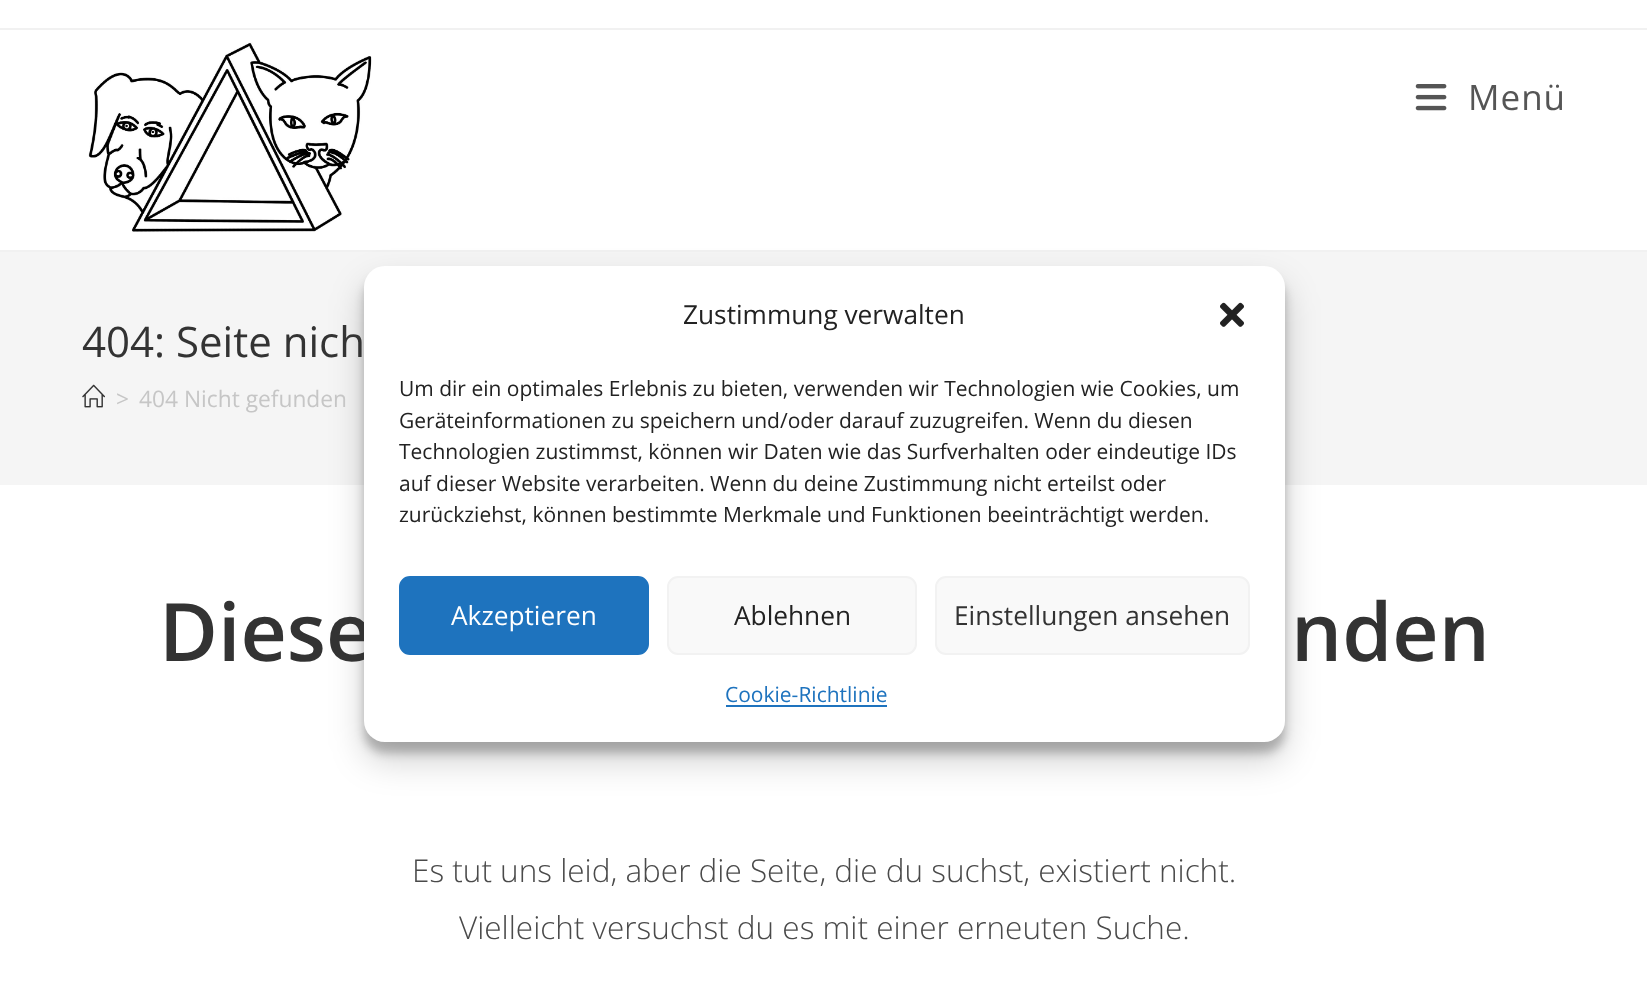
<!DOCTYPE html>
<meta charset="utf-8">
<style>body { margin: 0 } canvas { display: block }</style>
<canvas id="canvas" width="1647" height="1006"></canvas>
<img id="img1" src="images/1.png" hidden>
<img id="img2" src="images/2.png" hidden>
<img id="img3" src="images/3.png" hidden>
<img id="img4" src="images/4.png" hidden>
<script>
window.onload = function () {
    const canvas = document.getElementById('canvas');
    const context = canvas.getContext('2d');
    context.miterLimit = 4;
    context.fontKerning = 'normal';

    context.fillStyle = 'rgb(255, 255, 255)';
    context.fillRect(0, 0, 1647, 1006);
    context.fillStyle = 'rgb(241, 241, 241)';
    context.fillRect(0, 28, 1647, 2);
    context.fillRect(0, 250, 1647, 2);
    context.drawImage(document.getElementById('img1'), 88, 42, 284, 190);
    context.drawImage(document.getElementById('img2'), 1415, 84, 32, 27);
    context.fillStyle = 'rgb(245, 245, 245)';
    context.fillRect(0, 252, 1647, 233);
    context.drawImage(document.getElementById('img3'), 82, 384, 23, 24);
    context.fillStyle = 'rgba(0, 0, 0, 0.23)';
    context.filter = 'blur(5px)';
    context.beginPath();
    context.roundRect(364, 277, 921, 476, 21);
    context.fill();
    context.filter = 'none';
    context.fillStyle = 'rgba(0, 0, 0, 0.19)';
    context.filter = 'blur(17.5px)';
    context.beginPath();
    context.roundRect(364, 284, 921, 476, 21);
    context.fill();
    context.filter = 'none';
    context.letterSpacing = '1px';
    context.font = '35px Open Sans';
    context.fillStyle = 'rgb(85, 85, 85)';
    context.fillText('Menü', 1468, 110);
    context.letterSpacing = '0px';
    context.font = '42px Open Sans';
    context.fillStyle = 'rgb(51, 51, 51)';
    context.fillText('404: Seite nich', 82, 357);
    context.font = '22.75px Open Sans';
    context.fillStyle = 'rgb(198, 198, 198)';
    context.fillText('>', 116, 407);
    context.fillText('404 Nicht gefunden', 139, 407);
    context.font = '600 80.5px Open Sans';
    context.fillStyle = 'rgb(51, 51, 51)';
    context.fillText('Diese', 159, 661);
    context.fillText('nden', 1291, 661);
    context.font = '300 31.5px Open Sans';
    context.fillStyle = 'rgb(74, 74, 74)';
    context.fillText('Es tut uns leid, aber die Seite, die du suchst, existiert nicht.', 412, 882);
    context.fillText('Vielleicht versuchst du es mit einer erneuten Suche.', 459, 939);
    context.fillStyle = 'rgb(255, 255, 255)';
    context.beginPath();
    context.roundRect(364, 266, 921, 476, 21);
    context.fill();
    context.font = '26.25px Open Sans';
    context.fillStyle = 'rgb(34, 34, 34)';
    context.fillText('Zustimmung verwalten', 683, 324);
    context.drawImage(document.getElementById('img4'), 1220, 302, 24, 25);
    context.font = '21px Open Sans';
    context.fillText('Um dir ein optimales Erlebnis zu bieten, verwenden wir Technologien wie Cookies, um', 399, 396);
    context.fillText('Geräteinformationen zu speichern und/oder darauf zuzugreifen. Wenn du diesen', 399, 428);
    context.fillText('Technologien zustimmst, können wir Daten wie das Surfverhalten oder eindeutige IDs', 399, 459);
    context.fillText('auf dieser Website verarbeiten. Wenn du deine Zustimmung nicht erteilst oder', 399, 491);
    context.fillText('zurückziehst, können bestimmte Merkmale und Funktionen beeinträchtigt werden.', 399, 522);
    context.fillStyle = 'rgb(30, 115, 190)';
    context.beginPath();
    context.roundRect(400, 577, 248, 77, 10);
    context.fill();
    context.strokeStyle = 'rgb(30, 115, 190)';
    context.lineWidth = 2;
    context.stroke();
    context.font = '26.25px Open Sans';
    context.fillStyle = 'rgb(255, 255, 255)';
    context.fillText('Akzeptieren', 451, 625);
    context.fillStyle = 'rgb(249, 249, 249)';
    context.beginPath();
    context.roundRect(668, 577, 248, 77, 10);
    context.fill();
    context.strokeStyle = 'rgb(242, 242, 242)';
    context.stroke();
    context.fillStyle = 'rgb(34, 34, 34)';
    context.fillText('Ablehnen', 734, 625);
    context.fillStyle = 'rgb(249, 249, 249)';
    context.beginPath();
    context.roundRect(936, 577, 313, 77, 10);
    context.fill();
    context.stroke();
    context.fillStyle = 'rgb(51, 51, 51)';
    context.fillText('Einstellungen ansehen', 954, 625);
    context.font = '21px Open Sans';
    context.fillStyle = 'rgb(30, 115, 190)';
    context.fillText('Cookie-Richtlinie', 725, 702);
    context.fillRect(726, 705, 161, 2);
};
</script>
